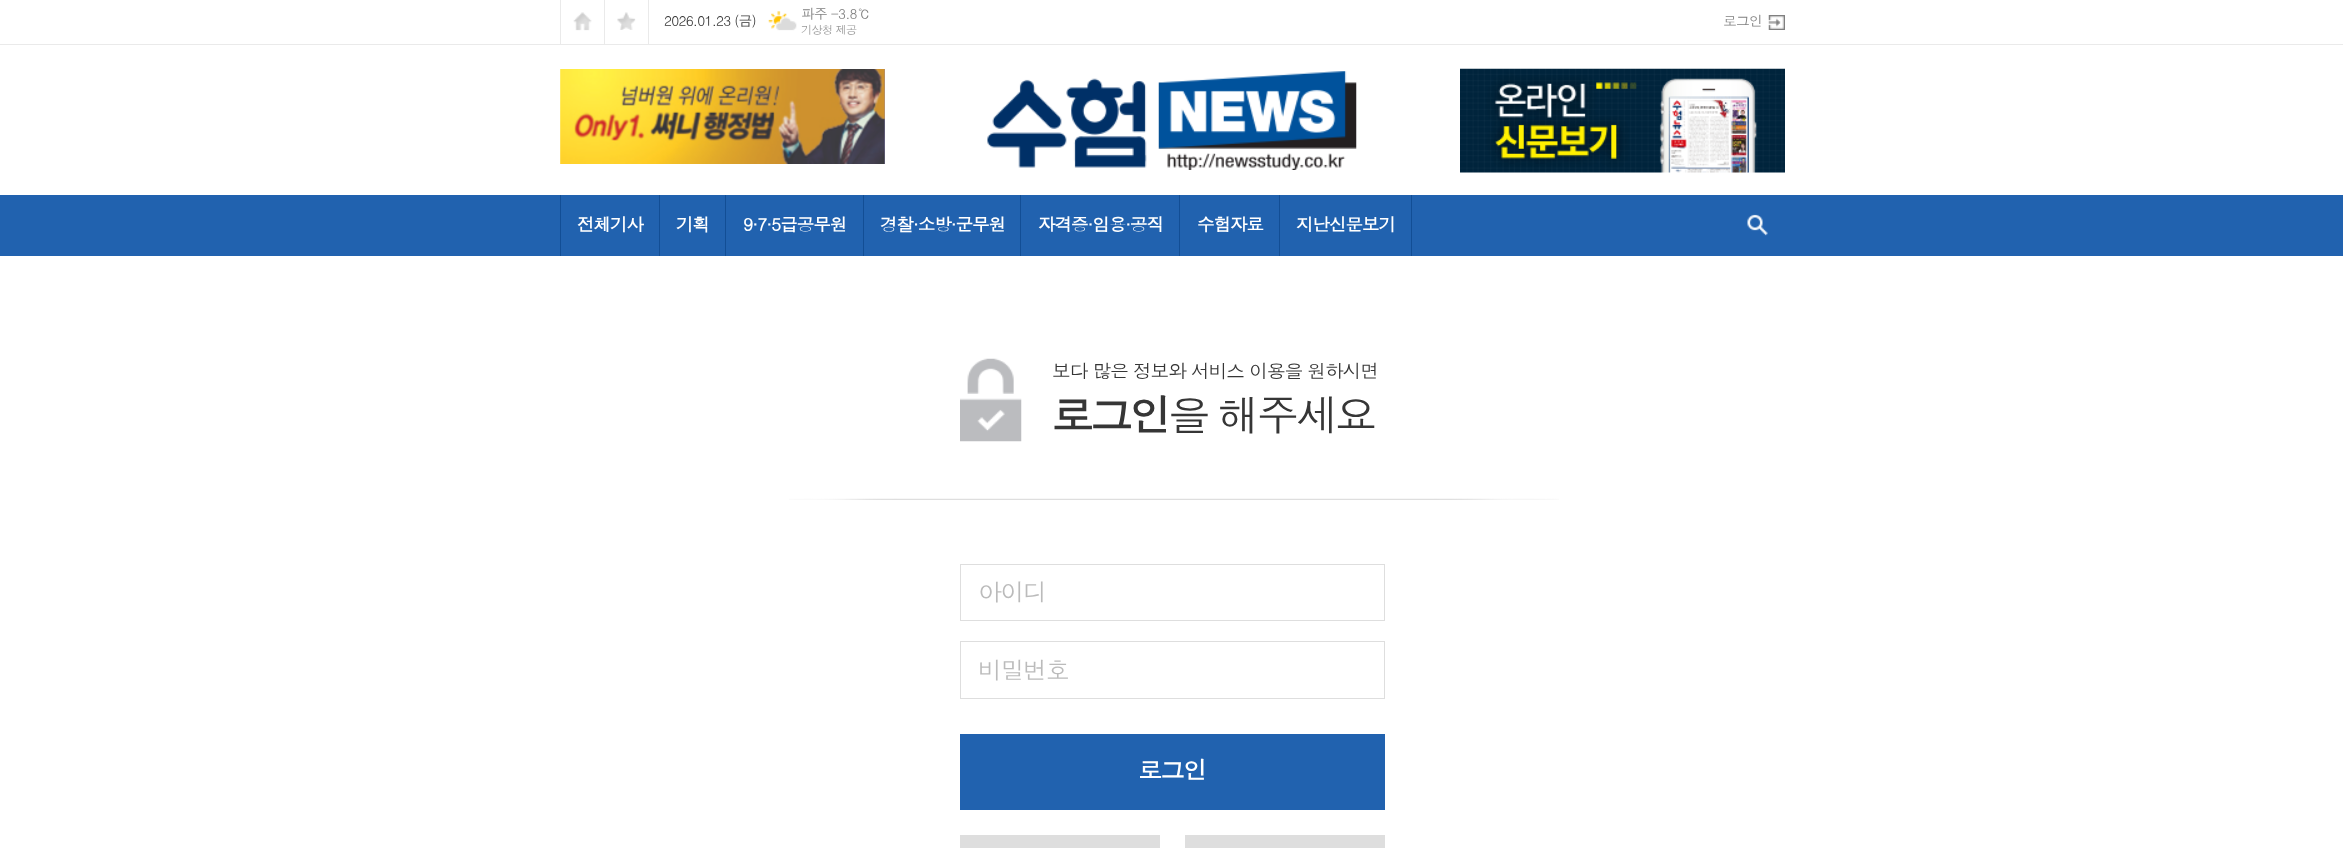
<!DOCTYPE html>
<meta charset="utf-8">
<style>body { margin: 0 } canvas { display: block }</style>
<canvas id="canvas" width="2343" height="848"></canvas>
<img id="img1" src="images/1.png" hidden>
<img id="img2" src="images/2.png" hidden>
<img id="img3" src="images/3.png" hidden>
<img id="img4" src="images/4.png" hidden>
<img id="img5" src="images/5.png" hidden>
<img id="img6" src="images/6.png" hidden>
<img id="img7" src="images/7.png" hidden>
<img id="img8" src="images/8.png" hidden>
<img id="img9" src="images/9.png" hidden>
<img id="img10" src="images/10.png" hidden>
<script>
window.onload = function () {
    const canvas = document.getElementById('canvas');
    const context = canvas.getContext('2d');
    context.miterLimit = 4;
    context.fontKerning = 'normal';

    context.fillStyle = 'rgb(255, 255, 255)';
    context.fillRect(0, 0, 2343, 848);
    context.fillStyle = 'rgb(234, 234, 234)';
    context.fillRect(0, 44, 2343, 1);
    context.fillRect(648, 0, 1, 44);
    context.fillRect(560, 0, 1, 44);
    context.drawImage(document.getElementById('img1'), 573, 12, 19, 19);
    context.fillRect(604, 0, 1, 44);
    context.drawImage(document.getElementById('img2'), 617, 12, 19, 18);
    context.drawImage(document.getElementById('img3'), 768, 11, 29, 20);
    context.drawImage(document.getElementById('img4'), 1768, 15, 17, 15);
    context.drawImage(document.getElementById('img5'), 560, 69, 325, 95);
    context.fillStyle = 'rgba(64, 48, 143, 0.19)';
    context.fillRect(884, 69, 1, 95);
    context.drawImage(document.getElementById('img6'), 987, 71, 370, 99);
    context.drawImage(document.getElementById('img7'), 1460, 68, 325, 105);
    context.fillStyle = 'rgb(33, 98, 175)';
    context.fillRect(0, 195, 2343, 61);
    context.fillStyle = 'rgb(18, 78, 149)';
    context.fillRect(659, 195, 1, 61);
    context.fillRect(560, 195, 1, 61);
    context.fillRect(725, 195, 1, 61);
    context.fillRect(863, 195, 1, 61);
    context.fillRect(1020, 195, 1, 61);
    context.fillRect(1179, 195, 1, 61);
    context.fillRect(1279, 195, 1, 61);
    context.fillRect(1411, 195, 1, 61);
    context.drawImage(document.getElementById('img8'), 1747, 214, 21, 22);
    context.drawImage(document.getElementById('img9'), 789, 498, 770, 2);
    context.drawImage(document.getElementById('img10'), 960, 358, 62, 84);
    context.strokeStyle = 'rgb(222, 222, 222)';
    context.strokeRect(960.5, 564.5, 424, 56);
    context.strokeRect(960.5, 641.5, 424, 57);
    context.fillStyle = 'rgb(33, 98, 175)';
    context.fillRect(960, 734, 425, 76);
    context.fillStyle = 'rgb(222, 222, 222)';
    context.fillRect(960, 835, 200, 13);
    context.fillRect(1185, 835, 200, 13);
    context.letterSpacing = '-0.8px';
    context.font = '13.75px Dotum';
    context.fillStyle = 'rgb(54, 54, 54)';
    context.fillText('2026.01.23 (금)', 664, 26);
    context.fillStyle = 'rgb(128, 128, 128)';
    context.fillText('파주 -3.8℃', 801, 19);
    context.letterSpacing = '-0.75px';
    context.font = '11.25px Dotum';
    context.fillStyle = 'rgb(153, 153, 153)';
    context.fillText('기상청 제공', 801, 34);
    context.letterSpacing = '-0.8px';
    context.font = '13.75px Dotum';
    context.fillStyle = 'rgb(128, 128, 128)';
    context.fillText('로그인', 1723, 26);
    context.letterSpacing = '-1px';
    context.font = 'bold 17.5px Dotum';
    context.fillStyle = 'rgb(255, 255, 255)';
    context.fillText('전체기사', 577, 231);
    context.fillText('기획', 676, 231);
    context.fillText('9·7·5급공무원', 743, 231);
    context.fillText('경찰·소방·군무원', 880, 231);
    context.fillText('자격증·임용·공직', 1038, 231);
    context.fillText('수험자료', 1197, 231);
    context.fillText('지난신문보기', 1296, 231);
    context.letterSpacing = '-1.1px';
    context.font = '18.75px Dotum';
    context.fillStyle = 'rgb(54, 54, 54)';
    context.fillText('보다 많은 정보와 서비스 이용을 원하시면', 1052, 378);
    context.letterSpacing = '-3.5px';
    context.font = 'bold 42.5px Dotum';
    context.fillText('로그인', 1051, 431);
    context.font = '42.5px Dotum';
    context.fillText('을 해주세요', 1168, 431);
    context.letterSpacing = '-1.5px';
    context.font = '24px Dotum';
    context.fillStyle = 'rgb(187, 187, 187)';
    context.fillText('아이디', 978, 601);
    context.fillText('비밀번호', 978, 679);
    context.font = 'bold 24px Dotum';
    context.fillStyle = 'rgb(255, 255, 255)';
    context.fillText('로그인', 1138, 779);
};
</script>
